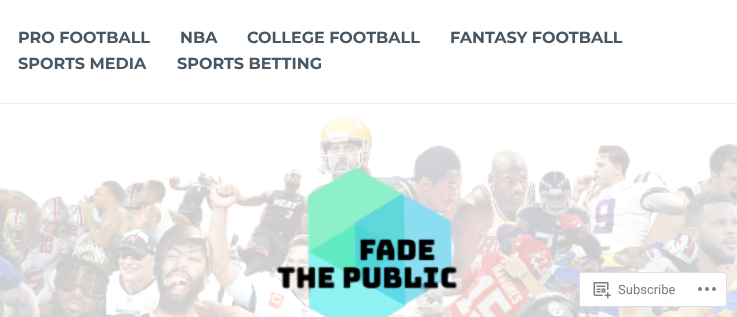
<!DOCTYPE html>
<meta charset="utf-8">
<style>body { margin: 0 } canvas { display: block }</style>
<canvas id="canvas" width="737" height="317"></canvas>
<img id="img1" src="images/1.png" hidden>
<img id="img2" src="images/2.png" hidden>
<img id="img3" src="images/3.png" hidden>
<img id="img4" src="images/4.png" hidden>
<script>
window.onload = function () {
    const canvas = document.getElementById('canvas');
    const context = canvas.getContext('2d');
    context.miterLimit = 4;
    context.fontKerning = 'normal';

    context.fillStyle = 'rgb(255, 255, 255)';
    context.fillRect(0, 0, 737, 317);
    context.fillStyle = 'rgb(238, 238, 238)';
    context.fillRect(0, 103, 737, 1);
    context.drawImage(document.getElementById('img1'), 0, 115, 737, 202);
    context.drawImage(document.getElementById('img2'), 276, 167, 182, 150);
    context.fillStyle = 'rgba(255, 255, 255, 0.98)';
    context.beginPath();
    context.roundRect(579, 272, 148, 35, 3);
    context.fill();
    context.beginPath();
    context.roundRect(579.5, 272.5, 147, 34, 2.5);
    context.strokeStyle = 'rgba(220, 220, 222, 0.98)';
    context.stroke();
    context.drawImage(document.getElementById('img3'), 593, 282, 18, 17);
    context.drawImage(document.getElementById('img4'), 698, 287, 18, 4);
    context.font = 'bold 16px Montserrat';
    context.fillStyle = 'rgb(73, 87, 98)';
    context.fillText('PRO FOOTBALL', 18, 43);
    context.fillText('NBA', 180, 43);
    context.fillText('COLLEGE FOOTBALL', 247, 43);
    context.fillText('FANTASY FOOTBALL', 450, 43);
    context.fillText('SPORTS MEDIA', 18, 69);
    context.fillText('SPORTS BETTING', 177, 69);
    context.font = '13px Roboto';
    context.fillStyle = 'rgb(123, 127, 132)';
    context.fillText('Subscribe', 618, 294);
};
</script>
